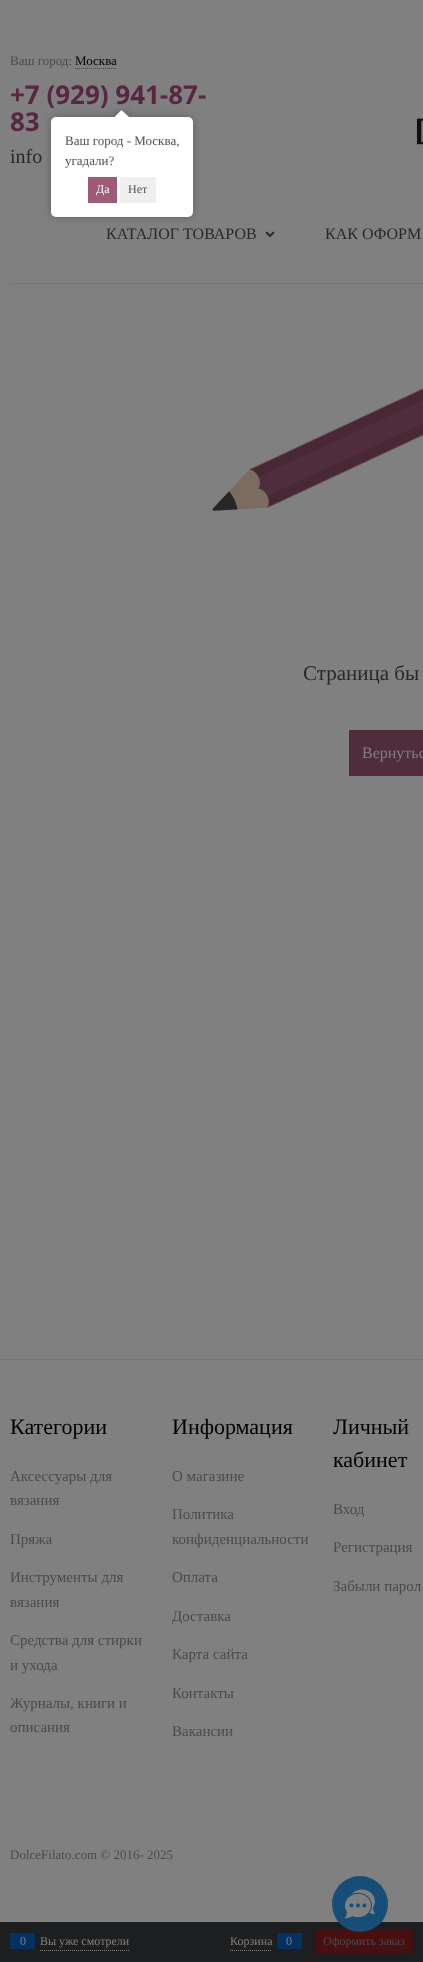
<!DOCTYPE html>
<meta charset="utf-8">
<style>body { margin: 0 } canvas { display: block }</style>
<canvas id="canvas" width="423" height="1962"></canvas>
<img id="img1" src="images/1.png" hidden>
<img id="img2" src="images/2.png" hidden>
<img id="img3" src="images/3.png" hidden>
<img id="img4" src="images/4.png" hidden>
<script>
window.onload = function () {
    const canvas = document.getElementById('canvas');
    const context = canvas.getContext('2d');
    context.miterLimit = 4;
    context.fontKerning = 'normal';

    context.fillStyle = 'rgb(128, 128, 128)';
    context.fillRect(0, 0, 423, 1962);
    context.beginPath();
    context.moveTo(75, 68.5);
    context.lineTo(117, 68.5);
    context.strokeStyle = 'rgb(74, 75, 78)';
    context.setLineDash([1, 1]);
    context.stroke();
    context.drawImage(document.getElementById('img1'), 416, 118, 7, 27);
    context.fillStyle = 'rgb(118, 118, 118)';
    context.fillRect(10, 283, 413, 1);
    context.drawImage(document.getElementById('img2'), 265, 231, 10, 7);
    context.drawImage(document.getElementById('img3'), 212, 388, 211, 123);
    context.fillStyle = 'rgb(80, 45, 60)';
    context.fillRect(349, 730, 74, 46);
    context.fillStyle = 'rgb(118, 118, 118)';
    context.fillRect(0, 1359, 423, 1);
    context.fillStyle = 'rgb(28, 30, 32)';
    context.fillRect(0, 1922, 423, 40);
    context.beginPath();
    context.moveTo(40, 1950.5);
    context.lineTo(129, 1950.5);
    context.strokeStyle = 'rgb(128, 128, 128)';
    context.stroke();
    context.fillStyle = 'rgb(3, 49, 97)';
    context.fillRect(10, 1933, 25, 16);
    context.beginPath();
    context.moveTo(230, 1950.5);
    context.lineTo(272, 1950.5);
    context.stroke();
    context.fillRect(277, 1933, 25, 16);
    context.fillStyle = 'rgb(71, 15, 16)';
    context.fillRect(315, 1929, 98, 25);
    context.fillStyle = 'rgba(0, 0, 0, 0.25)';
    context.filter = 'blur(4.5px)';
    context.beginPath();
    context.roundRect(51, 117, 142, 100, 5);
    context.fill();
    context.filter = 'none';
    context.fillStyle = 'rgb(255, 255, 255)';
    context.beginPath();
    context.roundRect(51, 117, 142, 100, 5);
    context.fill();
    context.save();
    context.beginPath();
    context.rect(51, 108, 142, 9);
    context.clip();
    context.fillStyle = 'rgba(0, 0, 0, 0.25)';
    context.filter = 'blur(4.5px)';
    context.beginPath();
    context.rect(117, 112, 10, 10);
    context.fill();
    context.filter = 'none';
    context.restore();
    context.save();
    context.beginPath();
    context.rect(51, 108, 142, 9);
    context.clip();
    context.beginPath();
    context.moveTo(121.5, 110);
    context.lineTo(129, 117);
    context.lineTo(121.5, 124);
    context.lineTo(114.5, 117);
    context.closePath();
    context.fill();
    context.restore();
    context.fillStyle = 'rgb(159, 90, 119)';
    context.fillRect(88, 177, 29, 26);
    context.fillStyle = 'rgb(239, 239, 239)';
    context.fillRect(120, 177, 36, 26);
    context.fillStyle = 'rgb(23, 78, 119)';
    context.beginPath();
    context.arc(360, 1904, 28, 0, 2 * Math.PI);
    context.fill();
    context.drawImage(document.getElementById('img4'), 345, 1889, 30, 30);
    context.font = '13px Liberation Serif';
    context.fillStyle = 'rgb(73, 74, 75)';
    context.fillText('Ваш город:', 10, 65);
    context.fillStyle = 'rgb(0, 0, 0)';
    context.fillText('Москва', 75, 65);
    context.font = 'bold 26px Open Sans';
    context.fillStyle = 'rgb(87, 39, 65)';
    context.fillText('+7 (929) 941-87-', 10, 104);
    context.fillText('83', 10, 131);
    context.font = '20px Liberation Serif';
    context.fillStyle = 'rgb(38, 40, 44)';
    context.fillText('info', 10, 163);
    context.font = '16px Liberation Serif';
    context.fillText('КАТАЛОГ ТОВАРОВ', 106, 239);
    context.fillText('КАК ОФОРМ', 325, 239);
    context.font = '21px Liberation Serif';
    context.fillText('Страница бы', 303, 680);
    context.font = '16px Liberation Serif';
    context.fillStyle = 'rgb(128, 128, 128)';
    context.fillText('Вернутьс', 362, 758);
    context.font = '22px Liberation Serif';
    context.fillStyle = 'rgb(0, 0, 0)';
    context.fillText('Категории', 10, 1434);
    context.font = '15px Liberation Serif';
    context.fillStyle = 'rgb(73, 74, 75)';
    context.fillText('Аксессуары для', 10, 1481);
    context.fillText('вязания', 10, 1505);
    context.fillText('Пряжа', 10, 1544);
    context.fillText('Инструменты для', 10, 1582);
    context.fillText('вязания', 10, 1607);
    context.fillText('Средства для стирки', 10, 1645);
    context.fillText('и ухода', 10, 1670);
    context.fillText('Журналы, книги и', 10, 1708);
    context.fillText('описания', 10, 1732);
    context.font = '22px Liberation Serif';
    context.fillStyle = 'rgb(0, 0, 0)';
    context.fillText('Информация', 172, 1434);
    context.font = '15px Liberation Serif';
    context.fillStyle = 'rgb(73, 74, 75)';
    context.fillText('О магазине', 172, 1481);
    context.fillText('Политика', 172, 1519);
    context.fillText('конфиденциальности', 172, 1544);
    context.fillText('Оплата', 172, 1582);
    context.fillText('Доставка', 172, 1621);
    context.fillText('Карта сайта', 172, 1659);
    context.fillText('Контакты', 172, 1698);
    context.fillText('Вакансии', 172, 1736);
    context.font = '22px Liberation Serif';
    context.fillStyle = 'rgb(0, 0, 0)';
    context.fillText('Личный', 333, 1434);
    context.fillText('кабинет', 333, 1467);
    context.font = '15px Liberation Serif';
    context.fillStyle = 'rgb(73, 74, 75)';
    context.fillText('Вход', 333, 1514);
    context.fillText('Регистрация', 333, 1552);
    context.fillText('Забыли парол', 333, 1591);
    context.font = '13px Liberation Serif';
    context.fillText('DolceFilato.com © 2016- 2025', 10, 1859);
    context.font = '12px Liberation Serif';
    context.fillStyle = 'rgb(128, 128, 128)';
    context.fillText('0', 20, 1945);
    context.fillText('Вы уже смотрели', 40, 1945);
    context.fillText('Корзина', 230, 1945);
    context.fillText('0', 286, 1945);
    context.fillStyle = 'rgb(73, 74, 75)';
    context.fillText('Оформить заказ', 323, 1945);
    context.font = '13px Liberation Serif';
    context.fillStyle = 'rgb(75, 79, 88)';
    context.fillText('Ваш город - Москва,', 65, 145);
    context.fillText('угадали?', 65, 165);
    context.font = '12px Liberation Serif';
    context.fillStyle = 'rgb(255, 255, 255)';
    context.fillText('Да', 96, 193);
    context.fillStyle = 'rgb(75, 79, 88)';
    context.fillText('Нет', 128, 193);
};
</script>
